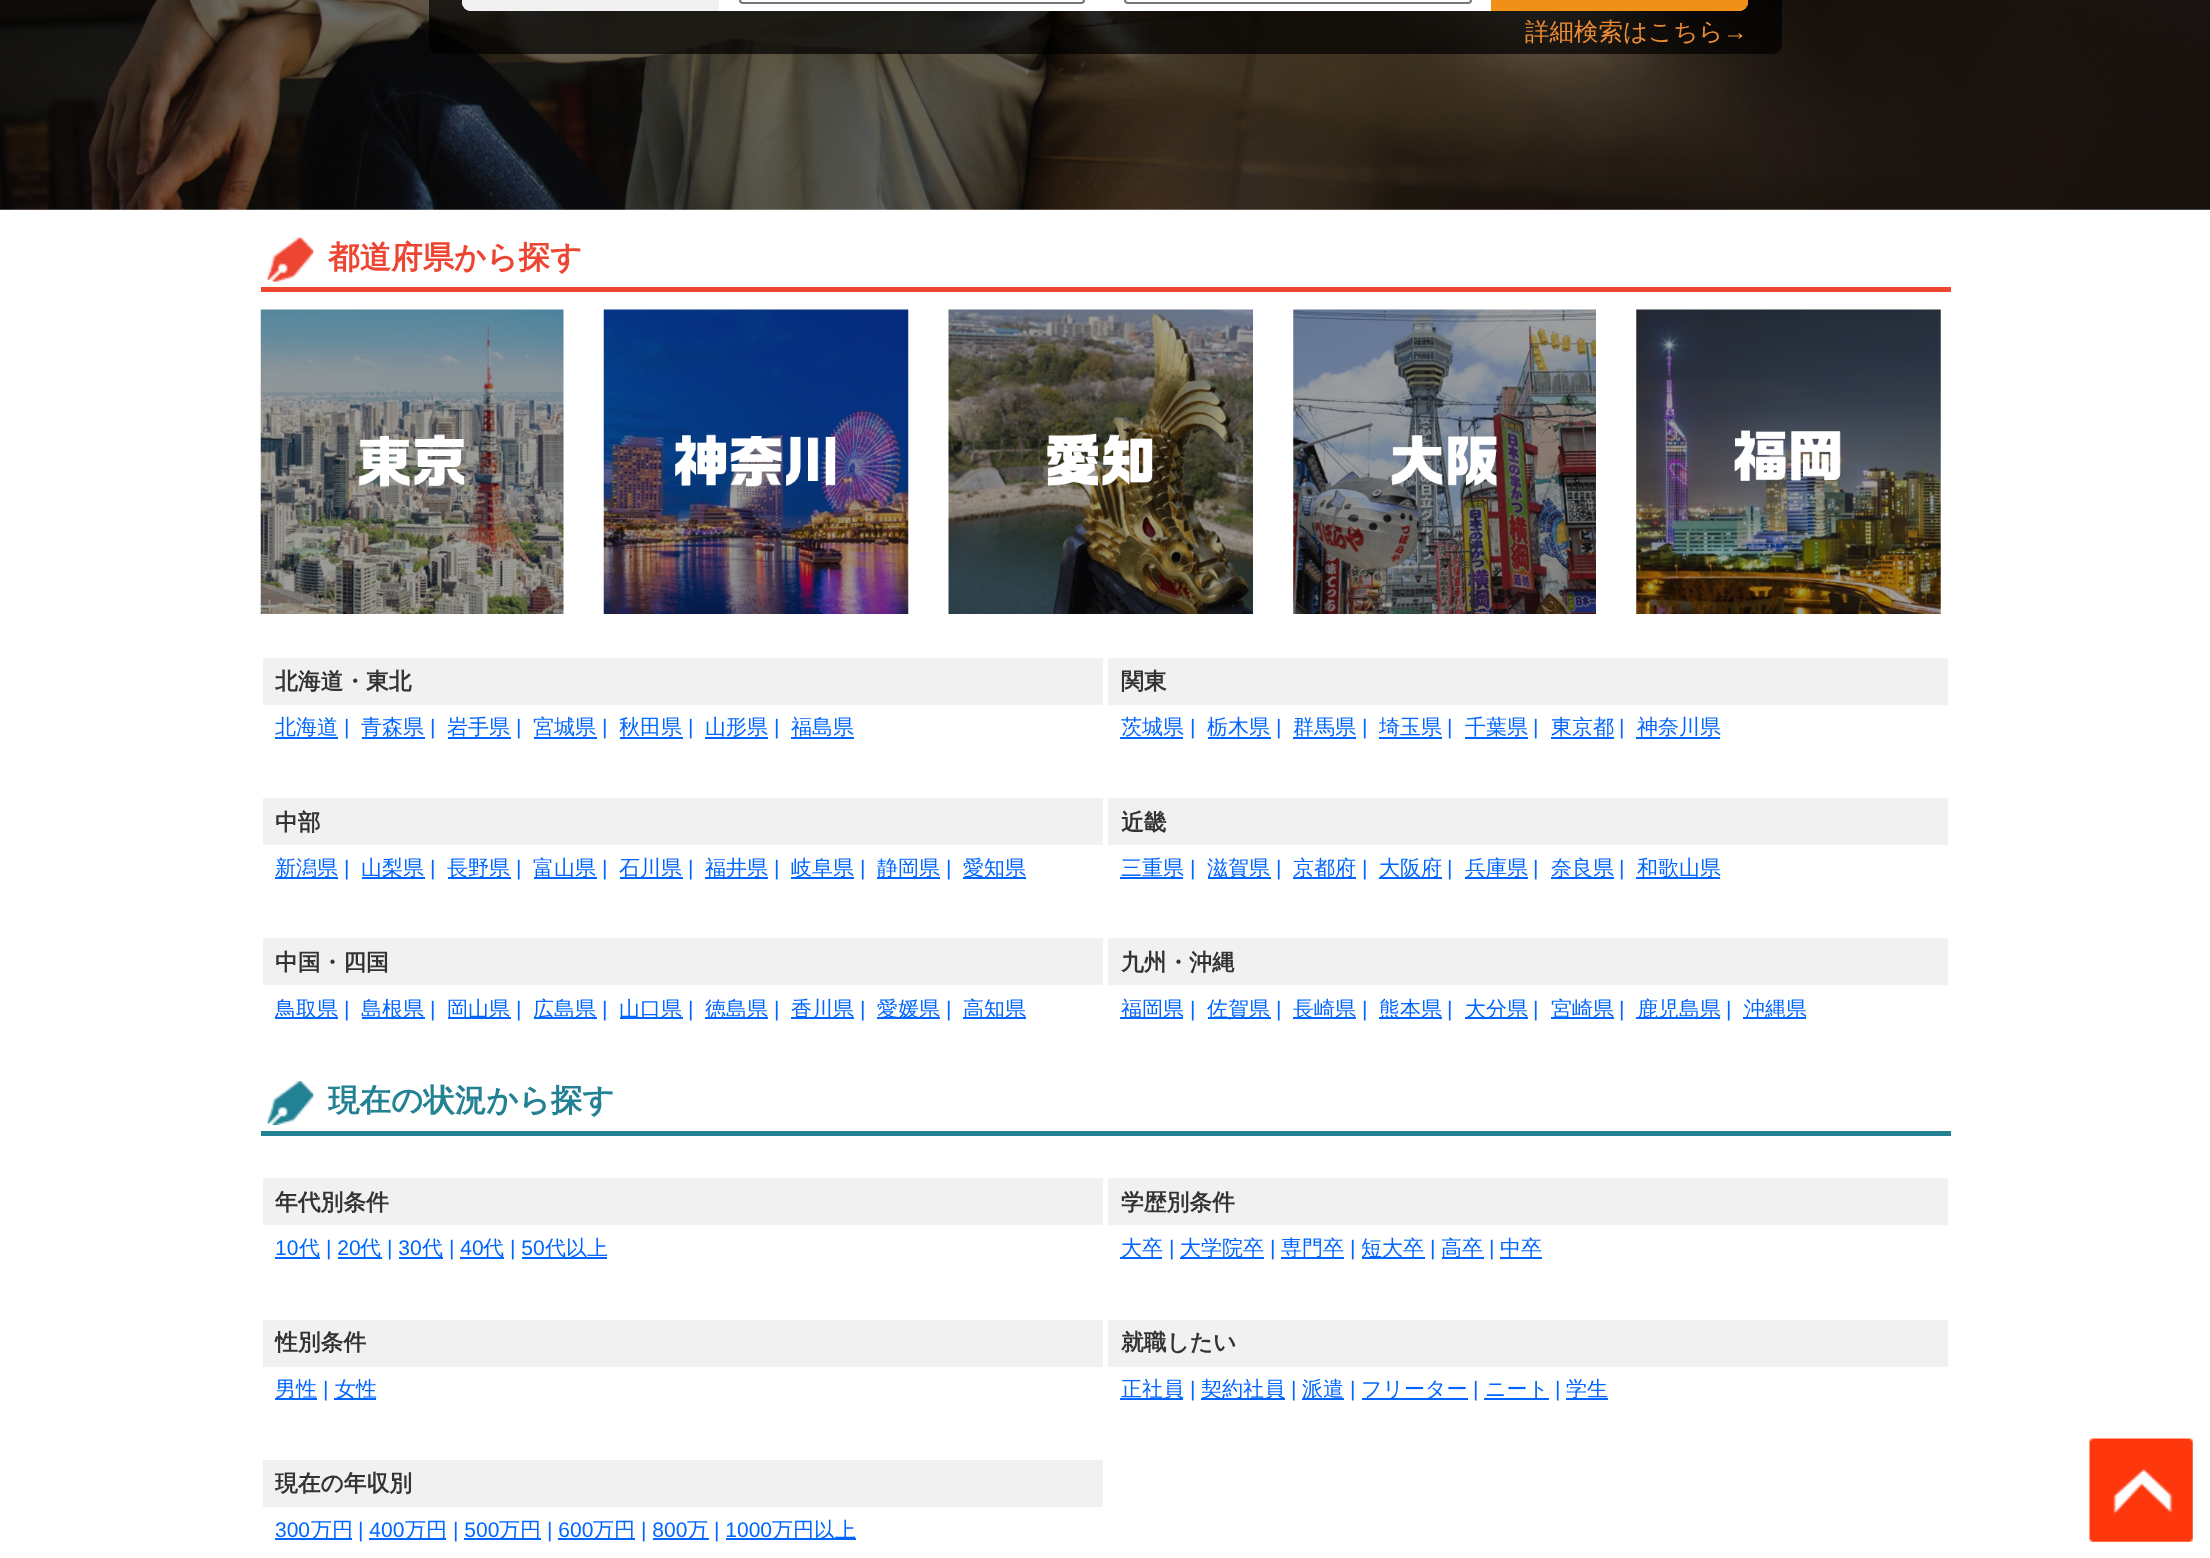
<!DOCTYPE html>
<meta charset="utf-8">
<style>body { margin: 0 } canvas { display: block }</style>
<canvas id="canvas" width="2210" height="1558"></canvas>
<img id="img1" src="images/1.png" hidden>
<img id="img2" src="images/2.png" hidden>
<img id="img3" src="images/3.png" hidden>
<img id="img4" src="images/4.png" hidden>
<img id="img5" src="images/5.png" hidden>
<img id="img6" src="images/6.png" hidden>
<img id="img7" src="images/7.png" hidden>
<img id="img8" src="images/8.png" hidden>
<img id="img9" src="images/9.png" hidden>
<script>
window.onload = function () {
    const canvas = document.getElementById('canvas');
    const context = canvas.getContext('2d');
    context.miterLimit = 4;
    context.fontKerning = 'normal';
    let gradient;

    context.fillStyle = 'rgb(255, 255, 255)';
    context.fillRect(0, 0, 2210, 1558);
    context.drawImage(document.getElementById('img1'), 0, 0, 2210, 210);
    context.fillStyle = 'rgba(0, 0, 0, 0.7)';
    context.beginPath();
    context.roundRect(429, -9, 1353, 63, 9);
    context.fill();
    context.fillStyle = 'rgb(255, 255, 255)';
    context.beginPath();
    context.roundRect(462, -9, 1286, 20, 9);
    context.fill();
    context.fillStyle = 'rgb(241, 241, 241)';
    context.beginPath();
    context.moveTo(471, -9);
    context.lineTo(719, -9);
    context.lineTo(719, 11);
    context.lineTo(471, 11);
    context.bezierCurveTo(466, 11, 462, 7, 462, 2);
    context.lineTo(462, 0);
    context.bezierCurveTo(462, -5, 466, -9, 471, -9);
    context.closePath();
    context.fill();
    context.beginPath();
    context.roundRect(740, -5, 344, 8, 3);
    context.strokeStyle = 'rgb(118, 118, 118)';
    context.lineWidth = 2;
    context.stroke();
    context.beginPath();
    context.roundRect(1125, -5, 346, 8, 3);
    context.stroke();
    gradient = context.createLinearGradient(1620, -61, 1620, 11);
    gradient.addColorStop(0, 'rgb(233, 122, 25)');
    gradient.addColorStop(1, 'rgb(241, 146, 23)');
    context.fillStyle = gradient;
    context.beginPath();
    context.moveTo(1491, -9);
    context.lineTo(1739, -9);
    context.bezierCurveTo(1744, -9, 1748, -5, 1748, 0);
    context.lineTo(1748, 2);
    context.bezierCurveTo(1748, 7, 1744, 11, 1739, 11);
    context.lineTo(1491, 11);
    context.closePath();
    context.fill();
    context.fillStyle = 'rgb(238, 69, 51)';
    context.fillRect(261, 287, 1690, 5);
    context.drawImage(document.getElementById('img2'), 267, 237, 47, 45);
    context.drawImage(document.getElementById('img3'), 260, 309, 304, 305);
    context.drawImage(document.getElementById('img4'), 603, 309, 306, 305);
    context.drawImage(document.getElementById('img5'), 948, 309, 305, 305);
    context.drawImage(document.getElementById('img6'), 1293, 309, 303, 305);
    context.drawImage(document.getElementById('img7'), 1636, 309, 305, 305);
    context.fillStyle = 'rgb(241, 241, 241)';
    context.fillRect(263, 658, 840, 47);
    context.fillStyle = 'rgb(0, 102, 255)';
    context.fillRect(275, 737, 63, 2);
    context.fillRect(362, 737, 63, 2);
    context.fillRect(448, 737, 63, 2);
    context.fillRect(534, 737, 63, 2);
    context.fillRect(620, 737, 63, 2);
    context.fillRect(705, 737, 63, 2);
    context.fillRect(791, 737, 63, 2);
    context.fillStyle = 'rgb(241, 241, 241)';
    context.fillRect(1108, 658, 840, 47);
    context.fillStyle = 'rgb(0, 102, 255)';
    context.fillRect(1120, 737, 63, 2);
    context.fillRect(1208, 737, 63, 2);
    context.fillRect(1293, 737, 63, 2);
    context.fillRect(1379, 737, 63, 2);
    context.fillRect(1465, 737, 63, 2);
    context.fillRect(1551, 737, 63, 2);
    context.fillRect(1636, 737, 84, 2);
    context.fillStyle = 'rgb(241, 241, 241)';
    context.fillRect(263, 798, 840, 47);
    context.fillStyle = 'rgb(0, 102, 255)';
    context.fillRect(275, 877, 63, 2);
    context.fillRect(362, 877, 63, 2);
    context.fillRect(448, 877, 63, 2);
    context.fillRect(534, 877, 63, 2);
    context.fillRect(620, 877, 63, 2);
    context.fillRect(705, 877, 63, 2);
    context.fillRect(791, 877, 63, 2);
    context.fillRect(877, 877, 63, 2);
    context.fillRect(963, 877, 63, 2);
    context.fillStyle = 'rgb(241, 241, 241)';
    context.fillRect(1108, 798, 840, 47);
    context.fillStyle = 'rgb(0, 102, 255)';
    context.fillRect(1120, 877, 63, 2);
    context.fillRect(1208, 877, 63, 2);
    context.fillRect(1293, 877, 63, 2);
    context.fillRect(1379, 877, 63, 2);
    context.fillRect(1465, 877, 63, 2);
    context.fillRect(1551, 877, 63, 2);
    context.fillRect(1636, 877, 84, 2);
    context.fillStyle = 'rgb(241, 241, 241)';
    context.fillRect(263, 938, 840, 47);
    context.fillStyle = 'rgb(0, 102, 255)';
    context.fillRect(275, 1017, 63, 2);
    context.fillRect(362, 1017, 63, 2);
    context.fillRect(448, 1017, 63, 2);
    context.fillRect(534, 1017, 63, 2);
    context.fillRect(620, 1017, 63, 2);
    context.fillRect(705, 1017, 63, 2);
    context.fillRect(791, 1017, 63, 2);
    context.fillRect(877, 1017, 63, 2);
    context.fillRect(963, 1017, 63, 2);
    context.fillStyle = 'rgb(241, 241, 241)';
    context.fillRect(1108, 938, 840, 47);
    context.fillStyle = 'rgb(0, 102, 255)';
    context.fillRect(1120, 1017, 63, 2);
    context.fillRect(1208, 1017, 63, 2);
    context.fillRect(1293, 1017, 63, 2);
    context.fillRect(1379, 1017, 63, 2);
    context.fillRect(1465, 1017, 63, 2);
    context.fillRect(1551, 1017, 63, 2);
    context.fillRect(1636, 1017, 84, 2);
    context.fillRect(1743, 1017, 63, 2);
    context.fillStyle = 'rgb(34, 129, 147)';
    context.fillRect(261, 1131, 1690, 5);
    context.drawImage(document.getElementById('img8'), 267, 1081, 47, 44);
    context.fillStyle = 'rgb(241, 241, 241)';
    context.fillRect(263, 1178, 840, 47);
    context.fillStyle = 'rgb(0, 102, 255)';
    context.fillRect(275, 1257, 45, 2);
    context.fillRect(338, 1257, 44, 2);
    context.fillRect(399, 1257, 44, 2);
    context.fillRect(460, 1257, 44, 2);
    context.fillRect(522, 1257, 85, 2);
    context.fillStyle = 'rgb(241, 241, 241)';
    context.fillRect(1108, 1178, 840, 47);
    context.fillStyle = 'rgb(0, 102, 255)';
    context.fillRect(1120, 1257, 42, 2);
    context.fillRect(1180, 1257, 84, 2);
    context.fillRect(1281, 1257, 63, 2);
    context.fillRect(1362, 1257, 63, 2);
    context.fillRect(1442, 1257, 42, 2);
    context.fillRect(1500, 1257, 42, 2);
    context.fillStyle = 'rgb(241, 241, 241)';
    context.fillRect(263, 1320, 840, 47);
    context.fillStyle = 'rgb(0, 102, 255)';
    context.fillRect(275, 1398, 42, 2);
    context.fillRect(334, 1398, 42, 2);
    context.fillStyle = 'rgb(241, 241, 241)';
    context.fillRect(1108, 1320, 840, 47);
    context.fillStyle = 'rgb(0, 102, 255)';
    context.fillRect(1120, 1398, 63, 2);
    context.fillRect(1201, 1398, 84, 2);
    context.fillRect(1302, 1398, 42, 2);
    context.fillRect(1362, 1398, 106, 2);
    context.fillRect(1484, 1398, 65, 2);
    context.fillRect(1566, 1398, 42, 2);
    context.fillStyle = 'rgb(241, 241, 241)';
    context.fillRect(263, 1460, 840, 47);
    context.fillStyle = 'rgb(0, 102, 255)';
    context.fillRect(275, 1538, 77, 2);
    context.fillRect(369, 1538, 77, 2);
    context.fillRect(464, 1538, 77, 2);
    context.fillRect(558, 1538, 77, 2);
    context.fillRect(653, 1538, 56, 2);
    context.fillRect(726, 1538, 130, 2);
    context.drawImage(document.getElementById('img9'), 2089, 1438, 104, 104);
    context.font = '500 24.5px WenQuanYi Zen Hei';
    context.fillStyle = 'rgb(236, 140, 52)';
    context.fillText('詳細検索はこちら', 1525, 40);
    context.font = '24.5px Liberation Sans';
    context.fillText('→', 1723, 40);
    context.font = 'bold 31.5px WenQuanYi Zen Hei';
    context.fillStyle = 'rgb(238, 69, 51)';
    context.fillText('都道府県から探す', 328, 268);
    context.font = 'bold 22.75px WenQuanYi Zen Hei';
    context.fillStyle = 'rgb(51, 51, 51)';
    context.fillText('北海道・東北', 275, 689);
    context.font = '500 21px WenQuanYi Zen Hei';
    context.fillStyle = 'rgb(0, 102, 255)';
    context.fillText('北海道', 275, 734);
    context.font = '21px Liberation Sans';
    context.fillText('|', 344, 734);
    context.font = '500 21px WenQuanYi Zen Hei';
    context.fillText('青森県', 361, 734);
    context.font = '21px Liberation Sans';
    context.fillText('|', 430, 734);
    context.font = '500 21px WenQuanYi Zen Hei';
    context.fillText('岩手県', 447, 734);
    context.font = '21px Liberation Sans';
    context.fillText('|', 516, 734);
    context.font = '500 21px WenQuanYi Zen Hei';
    context.fillText('宮城県', 533, 734);
    context.font = '21px Liberation Sans';
    context.fillText('|', 602, 734);
    context.font = '500 21px WenQuanYi Zen Hei';
    context.fillText('秋田県', 619, 734);
    context.font = '21px Liberation Sans';
    context.fillText('|', 688, 734);
    context.font = '500 21px WenQuanYi Zen Hei';
    context.fillText('山形県', 705, 734);
    context.font = '21px Liberation Sans';
    context.fillText('|', 774, 734);
    context.font = '500 21px WenQuanYi Zen Hei';
    context.fillText('福島県', 791, 734);
    context.font = 'bold 22.75px WenQuanYi Zen Hei';
    context.fillStyle = 'rgb(51, 51, 51)';
    context.fillText('関東', 1121, 689);
    context.font = '500 21px WenQuanYi Zen Hei';
    context.fillStyle = 'rgb(0, 102, 255)';
    context.fillText('茨城県', 1121, 734);
    context.font = '21px Liberation Sans';
    context.fillText('|', 1190, 734);
    context.font = '500 21px WenQuanYi Zen Hei';
    context.fillText('栃木県', 1207, 734);
    context.font = '21px Liberation Sans';
    context.fillText('|', 1276, 734);
    context.font = '500 21px WenQuanYi Zen Hei';
    context.fillText('群馬県', 1293, 734);
    context.font = '21px Liberation Sans';
    context.fillText('|', 1362, 734);
    context.font = '500 21px WenQuanYi Zen Hei';
    context.fillText('埼玉県', 1379, 734);
    context.font = '21px Liberation Sans';
    context.fillText('|', 1447, 734);
    context.font = '500 21px WenQuanYi Zen Hei';
    context.fillText('千葉県', 1465, 734);
    context.font = '21px Liberation Sans';
    context.fillText('|', 1533, 734);
    context.font = '500 21px WenQuanYi Zen Hei';
    context.fillText('東京都', 1551, 734);
    context.font = '21px Liberation Sans';
    context.fillText('|', 1619, 734);
    context.font = '500 21px WenQuanYi Zen Hei';
    context.fillText('神奈川県', 1637, 734);
    context.font = 'bold 22.75px WenQuanYi Zen Hei';
    context.fillStyle = 'rgb(51, 51, 51)';
    context.fillText('中部', 275, 830);
    context.font = '500 21px WenQuanYi Zen Hei';
    context.fillStyle = 'rgb(0, 102, 255)';
    context.fillText('新潟県', 275, 875);
    context.font = '21px Liberation Sans';
    context.fillText('|', 344, 875);
    context.font = '500 21px WenQuanYi Zen Hei';
    context.fillText('山梨県', 361, 875);
    context.font = '21px Liberation Sans';
    context.fillText('|', 430, 875);
    context.font = '500 21px WenQuanYi Zen Hei';
    context.fillText('長野県', 447, 875);
    context.font = '21px Liberation Sans';
    context.fillText('|', 516, 875);
    context.font = '500 21px WenQuanYi Zen Hei';
    context.fillText('富山県', 533, 875);
    context.font = '21px Liberation Sans';
    context.fillText('|', 602, 875);
    context.font = '500 21px WenQuanYi Zen Hei';
    context.fillText('石川県', 619, 875);
    context.font = '21px Liberation Sans';
    context.fillText('|', 688, 875);
    context.font = '500 21px WenQuanYi Zen Hei';
    context.fillText('福井県', 705, 875);
    context.font = '21px Liberation Sans';
    context.fillText('|', 774, 875);
    context.font = '500 21px WenQuanYi Zen Hei';
    context.fillText('岐阜県', 791, 875);
    context.font = '21px Liberation Sans';
    context.fillText('|', 860, 875);
    context.font = '500 21px WenQuanYi Zen Hei';
    context.fillText('静岡県', 877, 875);
    context.font = '21px Liberation Sans';
    context.fillText('|', 946, 875);
    context.font = '500 21px WenQuanYi Zen Hei';
    context.fillText('愛知県', 963, 875);
    context.font = 'bold 22.75px WenQuanYi Zen Hei';
    context.fillStyle = 'rgb(51, 51, 51)';
    context.fillText('近畿', 1121, 830);
    context.font = '500 21px WenQuanYi Zen Hei';
    context.fillStyle = 'rgb(0, 102, 255)';
    context.fillText('三重県', 1121, 875);
    context.font = '21px Liberation Sans';
    context.fillText('|', 1190, 875);
    context.font = '500 21px WenQuanYi Zen Hei';
    context.fillText('滋賀県', 1207, 875);
    context.font = '21px Liberation Sans';
    context.fillText('|', 1276, 875);
    context.font = '500 21px WenQuanYi Zen Hei';
    context.fillText('京都府', 1293, 875);
    context.font = '21px Liberation Sans';
    context.fillText('|', 1362, 875);
    context.font = '500 21px WenQuanYi Zen Hei';
    context.fillText('大阪府', 1379, 875);
    context.font = '21px Liberation Sans';
    context.fillText('|', 1447, 875);
    context.font = '500 21px WenQuanYi Zen Hei';
    context.fillText('兵庫県', 1465, 875);
    context.font = '21px Liberation Sans';
    context.fillText('|', 1533, 875);
    context.font = '500 21px WenQuanYi Zen Hei';
    context.fillText('奈良県', 1551, 875);
    context.font = '21px Liberation Sans';
    context.fillText('|', 1619, 875);
    context.font = '500 21px WenQuanYi Zen Hei';
    context.fillText('和歌山県', 1637, 875);
    context.font = 'bold 22.75px WenQuanYi Zen Hei';
    context.fillStyle = 'rgb(51, 51, 51)';
    context.fillText('中国・四国', 275, 970);
    context.font = '500 21px WenQuanYi Zen Hei';
    context.fillStyle = 'rgb(0, 102, 255)';
    context.fillText('鳥取県', 275, 1016);
    context.font = '21px Liberation Sans';
    context.fillText('|', 344, 1016);
    context.font = '500 21px WenQuanYi Zen Hei';
    context.fillText('島根県', 361, 1016);
    context.font = '21px Liberation Sans';
    context.fillText('|', 430, 1016);
    context.font = '500 21px WenQuanYi Zen Hei';
    context.fillText('岡山県', 447, 1016);
    context.font = '21px Liberation Sans';
    context.fillText('|', 516, 1016);
    context.font = '500 21px WenQuanYi Zen Hei';
    context.fillText('広島県', 533, 1016);
    context.font = '21px Liberation Sans';
    context.fillText('|', 602, 1016);
    context.font = '500 21px WenQuanYi Zen Hei';
    context.fillText('山口県', 619, 1016);
    context.font = '21px Liberation Sans';
    context.fillText('|', 688, 1016);
    context.font = '500 21px WenQuanYi Zen Hei';
    context.fillText('徳島県', 705, 1016);
    context.font = '21px Liberation Sans';
    context.fillText('|', 774, 1016);
    context.font = '500 21px WenQuanYi Zen Hei';
    context.fillText('香川県', 791, 1016);
    context.font = '21px Liberation Sans';
    context.fillText('|', 860, 1016);
    context.font = '500 21px WenQuanYi Zen Hei';
    context.fillText('愛媛県', 877, 1016);
    context.font = '21px Liberation Sans';
    context.fillText('|', 946, 1016);
    context.font = '500 21px WenQuanYi Zen Hei';
    context.fillText('高知県', 963, 1016);
    context.font = 'bold 22.75px WenQuanYi Zen Hei';
    context.fillStyle = 'rgb(51, 51, 51)';
    context.fillText('九州・沖縄', 1121, 970);
    context.font = '500 21px WenQuanYi Zen Hei';
    context.fillStyle = 'rgb(0, 102, 255)';
    context.fillText('福岡県', 1121, 1016);
    context.font = '21px Liberation Sans';
    context.fillText('|', 1190, 1016);
    context.font = '500 21px WenQuanYi Zen Hei';
    context.fillText('佐賀県', 1207, 1016);
    context.font = '21px Liberation Sans';
    context.fillText('|', 1276, 1016);
    context.font = '500 21px WenQuanYi Zen Hei';
    context.fillText('長崎県', 1293, 1016);
    context.font = '21px Liberation Sans';
    context.fillText('|', 1362, 1016);
    context.font = '500 21px WenQuanYi Zen Hei';
    context.fillText('熊本県', 1379, 1016);
    context.font = '21px Liberation Sans';
    context.fillText('|', 1447, 1016);
    context.font = '500 21px WenQuanYi Zen Hei';
    context.fillText('大分県', 1465, 1016);
    context.font = '21px Liberation Sans';
    context.fillText('|', 1533, 1016);
    context.font = '500 21px WenQuanYi Zen Hei';
    context.fillText('宮崎県', 1551, 1016);
    context.font = '21px Liberation Sans';
    context.fillText('|', 1619, 1016);
    context.font = '500 21px WenQuanYi Zen Hei';
    context.fillText('鹿児島県', 1637, 1016);
    context.font = '21px Liberation Sans';
    context.fillText('|', 1726, 1016);
    context.font = '500 21px WenQuanYi Zen Hei';
    context.fillText('沖縄県', 1744, 1016);
    context.font = 'bold 31.5px WenQuanYi Zen Hei';
    context.fillStyle = 'rgb(34, 129, 147)';
    context.fillText('現在の状況から探す', 328, 1111);
    context.font = 'bold 22.75px WenQuanYi Zen Hei';
    context.fillStyle = 'rgb(51, 51, 51)';
    context.fillText('年代別条件', 275, 1210);
    context.font = '21px Liberation Sans';
    context.fillStyle = 'rgb(0, 102, 255)';
    context.fillText('10', 275, 1255);
    context.font = '500 21px WenQuanYi Zen Hei';
    context.fillText('代', 299, 1255);
    context.font = '21px Liberation Sans';
    context.fillText('| 20', 326, 1255);
    context.font = '500 21px WenQuanYi Zen Hei';
    context.fillText('代', 360, 1255);
    context.font = '21px Liberation Sans';
    context.fillText('| 30', 387, 1255);
    context.font = '500 21px WenQuanYi Zen Hei';
    context.fillText('代', 422, 1255);
    context.font = '21px Liberation Sans';
    context.fillText('| 40', 449, 1255);
    context.font = '500 21px WenQuanYi Zen Hei';
    context.fillText('代', 483, 1255);
    context.font = '21px Liberation Sans';
    context.fillText('| 50', 510, 1255);
    context.font = '500 21px WenQuanYi Zen Hei';
    context.fillText('代以上', 545, 1255);
    context.font = 'bold 22.75px WenQuanYi Zen Hei';
    context.fillStyle = 'rgb(51, 51, 51)';
    context.fillText('学歴別条件', 1121, 1210);
    context.font = '500 21px WenQuanYi Zen Hei';
    context.fillStyle = 'rgb(0, 102, 255)';
    context.fillText('大卒', 1121, 1255);
    context.font = '21px Liberation Sans';
    context.fillText('|', 1169, 1255);
    context.font = '500 21px WenQuanYi Zen Hei';
    context.fillText('大学院卒', 1180, 1255);
    context.font = '21px Liberation Sans';
    context.fillText('|', 1270, 1255);
    context.font = '500 21px WenQuanYi Zen Hei';
    context.fillText('専門卒', 1281, 1255);
    context.font = '21px Liberation Sans';
    context.fillText('|', 1350, 1255);
    context.font = '500 21px WenQuanYi Zen Hei';
    context.fillText('短大卒', 1361, 1255);
    context.font = '21px Liberation Sans';
    context.fillText('|', 1430, 1255);
    context.font = '500 21px WenQuanYi Zen Hei';
    context.fillText('高卒', 1441, 1255);
    context.font = '21px Liberation Sans';
    context.fillText('|', 1489, 1255);
    context.font = '500 21px WenQuanYi Zen Hei';
    context.fillText('中卒', 1500, 1255);
    context.font = 'bold 22.75px WenQuanYi Zen Hei';
    context.fillStyle = 'rgb(51, 51, 51)';
    context.fillText('性別条件', 275, 1350);
    context.font = '500 21px WenQuanYi Zen Hei';
    context.fillStyle = 'rgb(0, 102, 255)';
    context.fillText('男性', 275, 1396);
    context.font = '21px Liberation Sans';
    context.fillText('|', 323, 1396);
    context.font = '500 21px WenQuanYi Zen Hei';
    context.fillText('女性', 335, 1396);
    context.font = 'bold 22.75px WenQuanYi Zen Hei';
    context.fillStyle = 'rgb(51, 51, 51)';
    context.fillText('就職したい', 1121, 1350);
    context.font = '500 21px WenQuanYi Zen Hei';
    context.fillStyle = 'rgb(0, 102, 255)';
    context.fillText('正社員', 1121, 1396);
    context.font = '21px Liberation Sans';
    context.fillText('|', 1190, 1396);
    context.font = '500 21px WenQuanYi Zen Hei';
    context.fillText('契約社員', 1201, 1396);
    context.font = '21px Liberation Sans';
    context.fillText('|', 1291, 1396);
    context.font = '500 21px WenQuanYi Zen Hei';
    context.fillText('派遣', 1302, 1396);
    context.font = '21px Liberation Sans';
    context.fillText('|', 1350, 1396);
    context.font = '500 21px WenQuanYi Zen Hei';
    context.fillText('フリーター', 1361, 1396);
    context.font = '21px Liberation Sans';
    context.fillText('|', 1473, 1396);
    context.font = '500 21px WenQuanYi Zen Hei';
    context.fillText('ニート', 1485, 1396);
    context.font = '21px Liberation Sans';
    context.fillText('|', 1555, 1396);
    context.font = '500 21px WenQuanYi Zen Hei';
    context.fillText('学生', 1566, 1396);
    context.font = 'bold 22.75px WenQuanYi Zen Hei';
    context.fillStyle = 'rgb(51, 51, 51)';
    context.fillText('現在の年収別', 275, 1491);
    context.font = '21px Liberation Sans';
    context.fillStyle = 'rgb(0, 102, 255)';
    context.fillText('300', 275, 1537);
    context.font = '500 21px WenQuanYi Zen Hei';
    context.fillText('万円', 311, 1537);
    context.font = '21px Liberation Sans';
    context.fillText('| 400', 358, 1537);
    context.font = '500 21px WenQuanYi Zen Hei';
    context.fillText('万円', 405, 1537);
    context.font = '21px Liberation Sans';
    context.fillText('| 500', 453, 1537);
    context.font = '500 21px WenQuanYi Zen Hei';
    context.fillText('万円', 499, 1537);
    context.font = '21px Liberation Sans';
    context.fillText('| 600', 547, 1537);
    context.font = '500 21px WenQuanYi Zen Hei';
    context.fillText('万円', 593, 1537);
    context.font = '21px Liberation Sans';
    context.fillText('| 800', 641, 1537);
    context.font = '500 21px WenQuanYi Zen Hei';
    context.fillText('万', 687, 1537);
    context.font = '21px Liberation Sans';
    context.fillText('| 1000', 714, 1537);
    context.font = '500 21px WenQuanYi Zen Hei';
    context.fillText('万円以上', 772, 1537);
};
</script>
